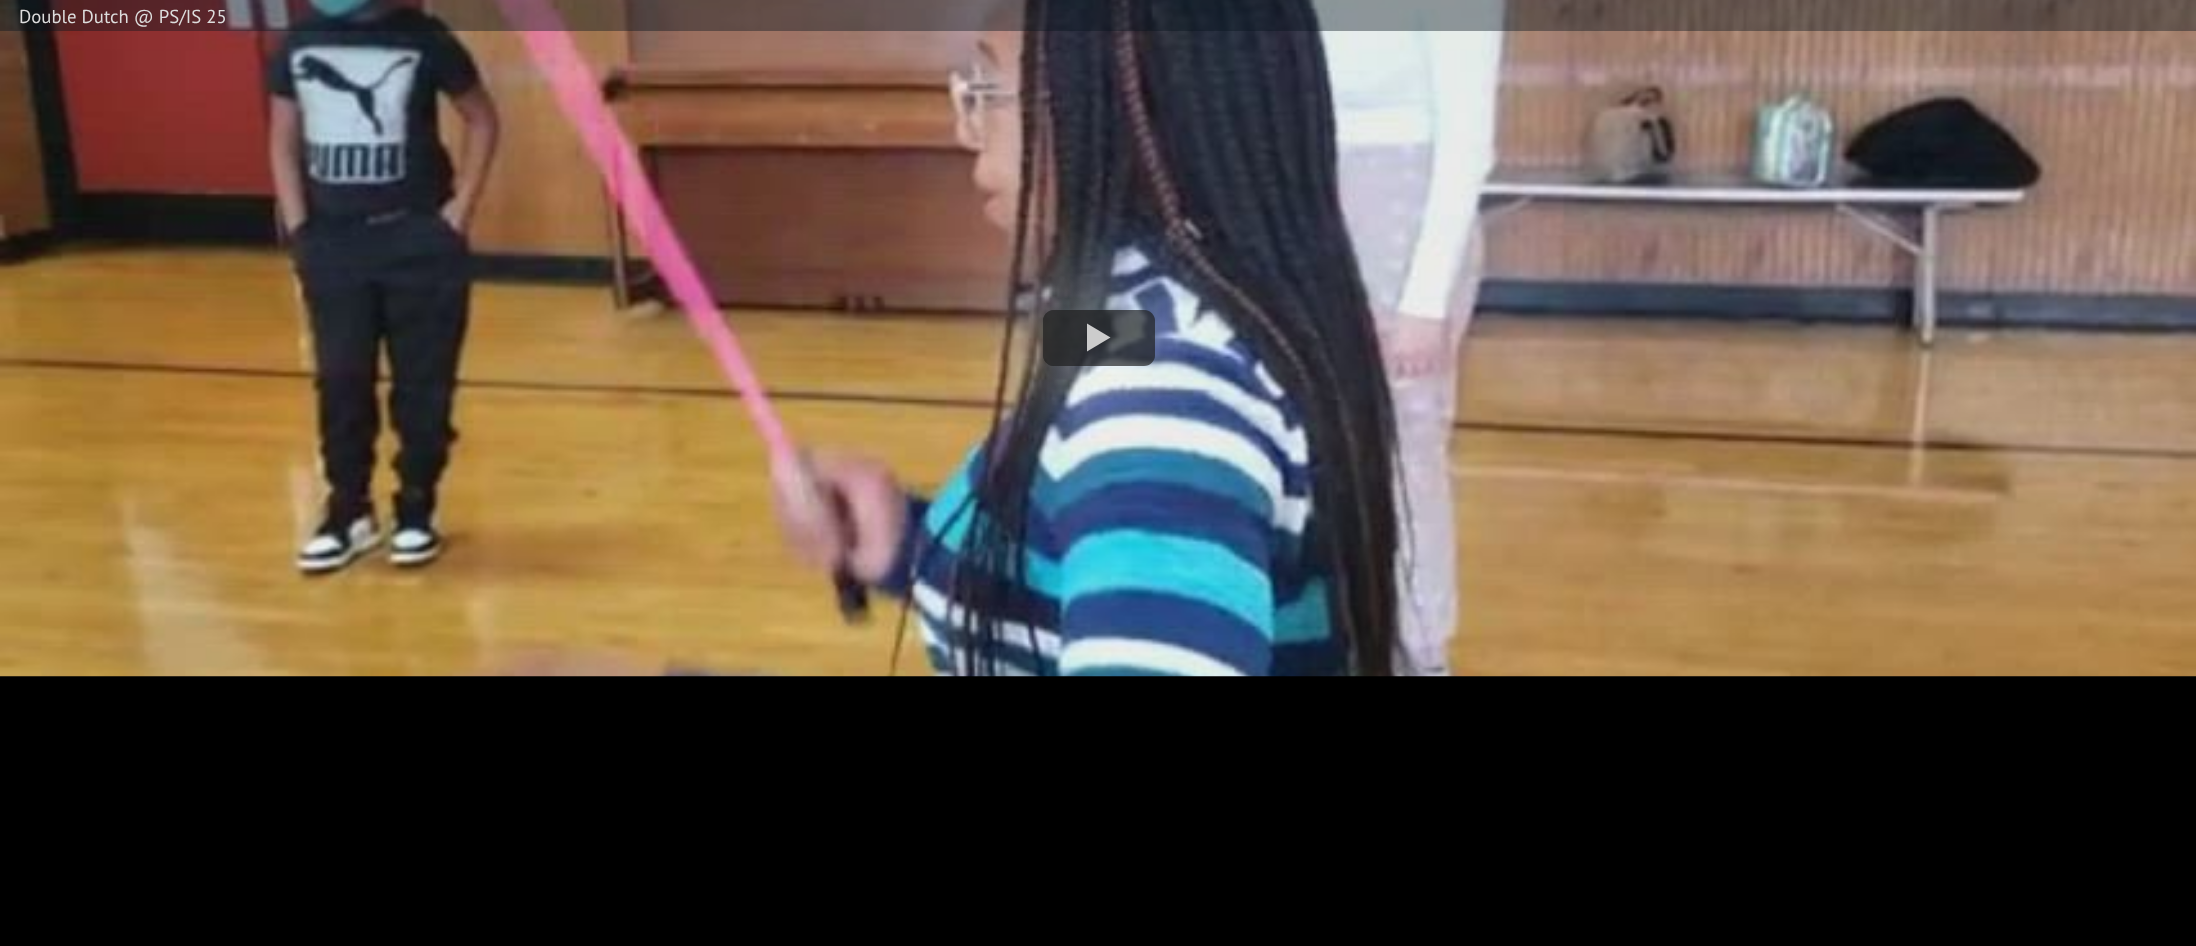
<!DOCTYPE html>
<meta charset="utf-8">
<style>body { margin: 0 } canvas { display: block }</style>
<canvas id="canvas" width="2196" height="946"></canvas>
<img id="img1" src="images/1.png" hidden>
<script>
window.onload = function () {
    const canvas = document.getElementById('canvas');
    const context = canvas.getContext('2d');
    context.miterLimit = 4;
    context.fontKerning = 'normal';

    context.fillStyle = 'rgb(0, 0, 0)';
    context.fillRect(0, 0, 2196, 946);
    context.drawImage(document.getElementById('img1'), 0, 0, 2196, 677);
    context.fillStyle = 'rgba(7, 20, 30, 0.4)';
    context.fillRect(0, 0, 2196, 31);
    context.save();
    context.beginPath();
    context.moveTo(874, 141);
    context.lineTo(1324, 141);
    context.lineTo(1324, 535);
    context.lineTo(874, 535);
    context.closePath();
    context.moveTo(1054, 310);
    context.lineTo(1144, 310);
    context.bezierCurveTo(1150, 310, 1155, 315, 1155, 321);
    context.lineTo(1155, 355);
    context.bezierCurveTo(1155, 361, 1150, 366, 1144, 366);
    context.lineTo(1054, 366);
    context.bezierCurveTo(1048, 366, 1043, 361, 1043, 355);
    context.lineTo(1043, 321);
    context.bezierCurveTo(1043, 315, 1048, 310, 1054, 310);
    context.closePath();
    context.clip('evenodd');
    context.fillStyle = 'rgb(255, 255, 255)';
    context.filter = 'blur(56px)';
    context.beginPath();
    context.roundRect(1043, 310, 112, 56, 11);
    context.fill();
    context.filter = 'none';
    context.restore();
    context.fillStyle = 'rgba(50, 50, 50, 0.75)';
    context.beginPath();
    context.roundRect(1043, 310, 112, 56, 11);
    context.fill();
    context.fillStyle = 'rgb(204, 204, 204)';
    context.beginPath();
    context.moveTo(1087, 323.5);
    context.lineTo(1110.5, 337.5);
    context.lineTo(1087, 351.5);
    context.closePath();
    context.fill();
    context.font = '18.75px PT Sans';
    context.fillStyle = 'rgb(221, 221, 221)';
    context.fillText('Double Dutch @ PS/IS 25', 19, 23);
};
</script>
